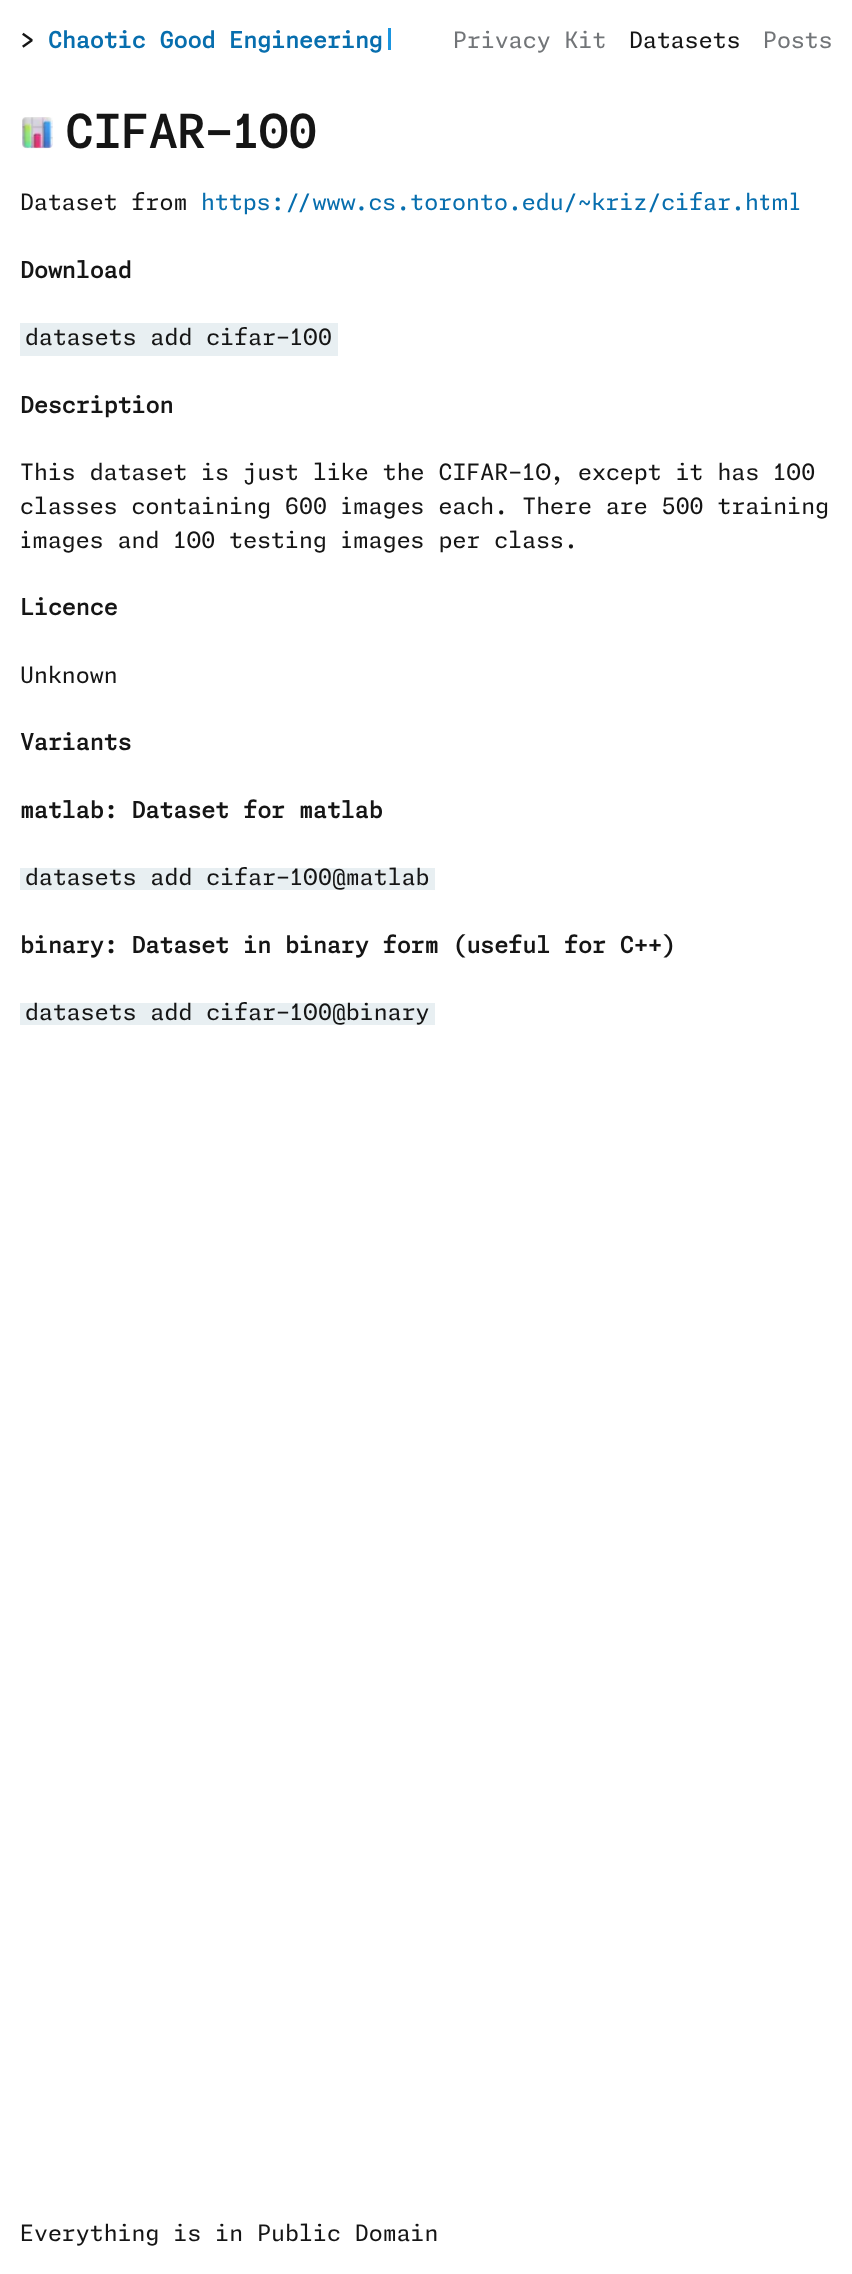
<!DOCTYPE html>
<meta charset="utf-8">
<style>body { margin: 0 } canvas { display: block }</style>
<canvas id="canvas" width="852" height="2274"></canvas>
<img id="img1" src="images/1.png" hidden>
<script>
window.onload = function () {
    const canvas = document.getElementById('canvas');
    const context = canvas.getContext('2d');
    context.miterLimit = 4;
    context.fontKerning = 'normal';

    context.fillStyle = 'rgb(255, 255, 255)';
    context.fillRect(0, 0, 852, 2274);
    context.fillStyle = 'rgb(26, 149, 224)';
    context.fillRect(388, 28, 3, 22);
    context.drawImage(document.getElementById('img1'), 22, 117, 31, 32);
    context.fillStyle = 'rgb(232, 239, 242)';
    context.fillRect(20, 323, 318, 33);
    context.fillRect(20, 868, 415, 22);
    context.fillRect(20, 1003, 415, 22);
    context.font = 'bold 22.5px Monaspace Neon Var';
    context.fillStyle = 'rgb(21, 21, 21)';
    context.fillText('>', 20, 48);
    context.fillStyle = 'rgb(7, 110, 174)';
    context.fillText('Chaotic Good Engineering', 48, 48);
    context.font = '22.5px Monaspace Neon Var';
    context.fillStyle = 'rgb(114, 117, 120)';
    context.fillText('Privacy Kit', 453, 48);
    context.fillStyle = 'rgb(21, 21, 21)';
    context.fillText('Datasets', 629, 48);
    context.fillStyle = 'rgb(114, 117, 120)';
    context.fillText('Posts', 763, 48);
    context.font = 'bold 45px Monaspace Neon Var';
    context.fillStyle = 'rgb(21, 21, 21)';
    context.fillText('CIFAR-100', 65, 148);
    context.font = '22.5px Monaspace Neon Var';
    context.fillText('Dataset from', 20, 210);
    context.fillStyle = 'rgb(7, 110, 174)';
    context.fillText('https://www.cs.toronto.edu/~kriz/cifar.html', 201, 210);
    context.font = 'bold 22.5px Monaspace Neon Var';
    context.fillStyle = 'rgb(21, 21, 21)';
    context.fillText('Download', 20, 278);
    context.font = '22.5px Monaspace Neon Var';
    context.fillText('datasets add cifar-100', 25, 345);
    context.font = 'bold 22.5px Monaspace Neon Var';
    context.fillText('Description', 20, 413);
    context.font = '22.5px Monaspace Neon Var';
    context.fillText('This dataset is just like the CIFAR-10, except it has 100', 20, 480);
    context.fillText('classes containing 600 images each. There are 500 training', 20, 514);
    context.fillText('images and 100 testing images per class.', 20, 548);
    context.font = 'bold 22.5px Monaspace Neon Var';
    context.fillText('Licence', 20, 615);
    context.font = '22.5px Monaspace Neon Var';
    context.fillText('Unknown', 20, 683);
    context.font = 'bold 22.5px Monaspace Neon Var';
    context.fillText('Variants', 20, 750);
    context.fillText('matlab: Dataset for matlab', 20, 818);
    context.font = '22.5px Monaspace Neon Var';
    context.fillText('datasets add cifar-100@matlab', 25, 885);
    context.font = 'bold 22.5px Monaspace Neon Var';
    context.fillText('binary: Dataset in binary form (useful for C++)', 20, 953);
    context.font = '22.5px Monaspace Neon Var';
    context.fillText('datasets add cifar-100@binary', 25, 1020);
    context.fillText('Everything is in Public Domain', 20, 2241);
};
</script>
